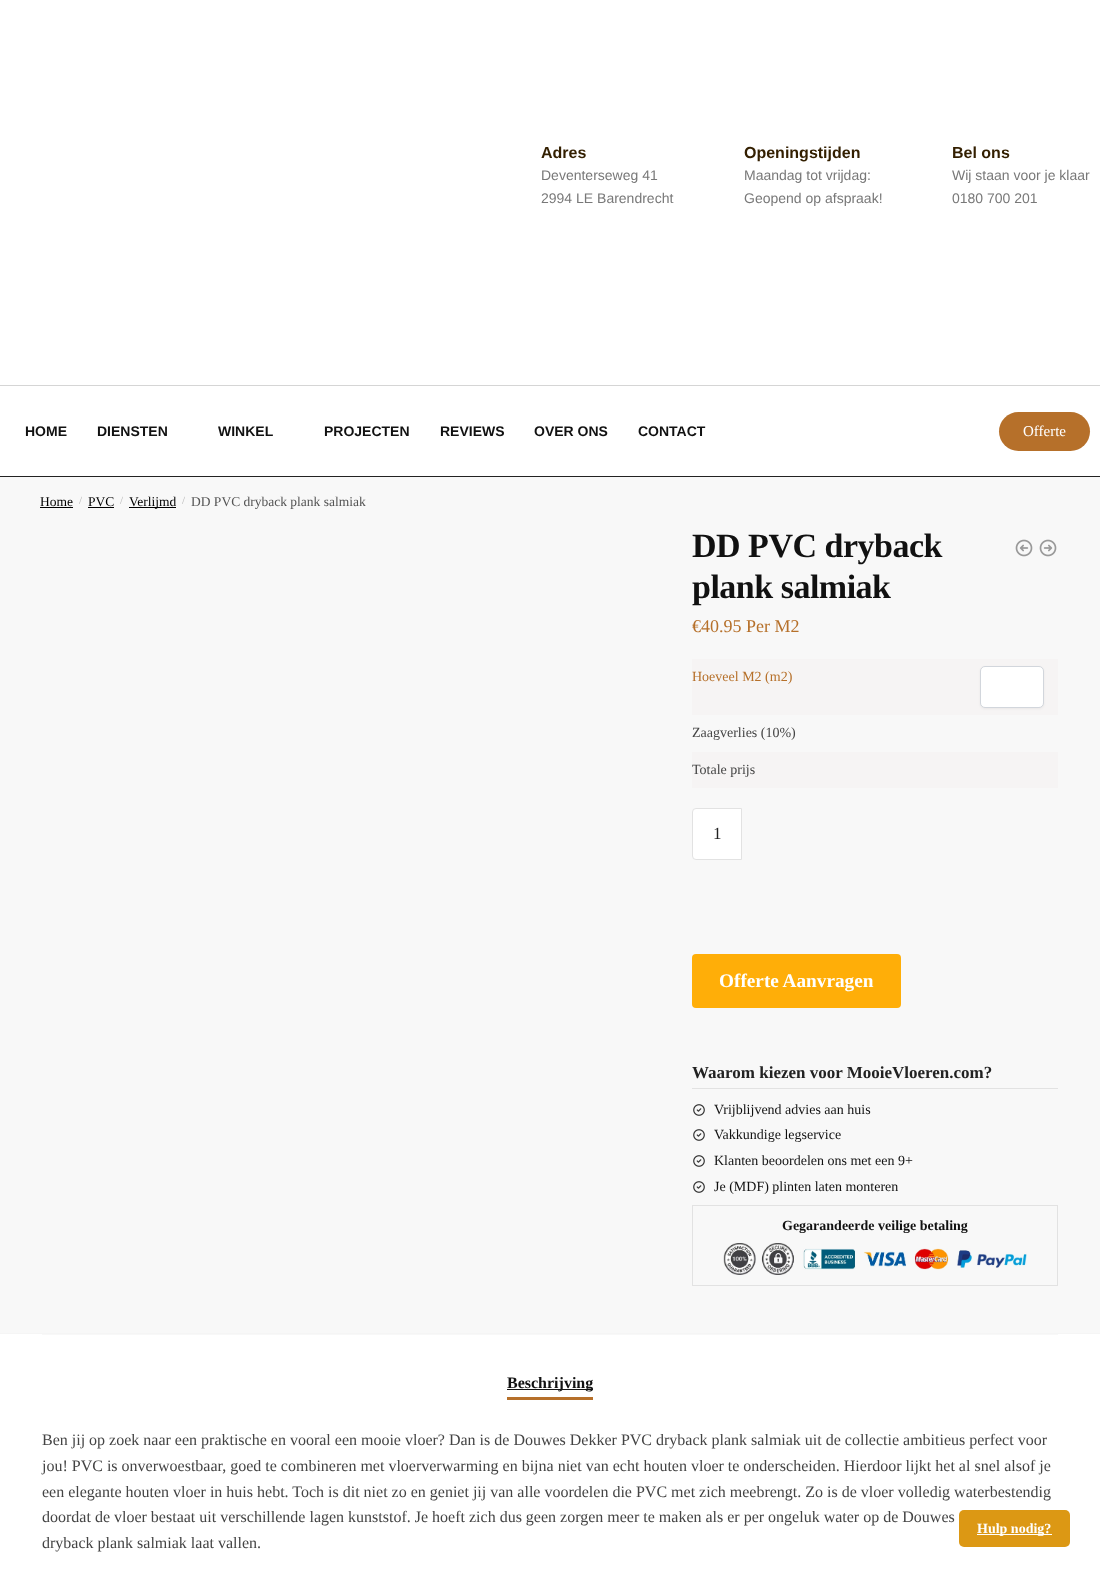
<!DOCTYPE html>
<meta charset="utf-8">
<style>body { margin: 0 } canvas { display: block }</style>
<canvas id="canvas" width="1115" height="1571"></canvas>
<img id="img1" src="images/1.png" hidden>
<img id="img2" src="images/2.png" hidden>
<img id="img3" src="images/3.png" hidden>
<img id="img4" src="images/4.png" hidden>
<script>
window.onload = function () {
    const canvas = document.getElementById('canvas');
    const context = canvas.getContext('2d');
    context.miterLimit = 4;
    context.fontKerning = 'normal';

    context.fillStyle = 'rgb(255, 255, 255)';
    context.fillRect(0, 0, 1115, 1571);
    context.fillStyle = 'rgb(213, 213, 213)';
    context.fillRect(0, 385, 1100, 1);
    context.fillStyle = 'rgb(182, 112, 42)';
    context.beginPath();
    context.roundRect(999, 412, 91, 39, 19.5);
    context.fill();
    context.fillStyle = 'rgb(34, 34, 34)';
    context.fillRect(0, 476, 1100, 1);
    context.fillStyle = 'rgb(248, 248, 248)';
    context.fillRect(0, 477, 1100, 856);
    context.fillStyle = 'rgb(0, 0, 0)';
    context.fillRect(40, 507, 33, 1);
    context.fillRect(88, 507, 26, 1);
    context.fillRect(129, 507, 47, 1);
    context.drawImage(document.getElementById('img1'), 1015, 539, 18, 18);
    context.drawImage(document.getElementById('img2'), 1039, 539, 18, 18);
    context.fillStyle = 'rgb(246, 244, 244)';
    context.fillRect(692, 659, 366, 56);
    context.fillStyle = 'rgba(0, 0, 0, 0.05)';
    context.filter = 'blur(1px)';
    context.beginPath();
    context.roundRect(980, 667, 64, 42, 5);
    context.fill();
    context.filter = 'none';
    context.fillStyle = 'rgb(255, 255, 255)';
    context.beginPath();
    context.roundRect(980.5, 666.5, 63, 41, 4.5);
    context.fill();
    context.strokeStyle = 'rgb(210, 214, 220)';
    context.stroke();
    context.fillStyle = 'rgb(246, 244, 244)';
    context.fillRect(692, 752, 366, 36);
    context.fillStyle = 'rgb(255, 255, 255)';
    context.beginPath();
    context.roundRect(692.5, 808.5, 49, 51, [3.5, 0, 0, 3.5]);
    context.fill();
    context.strokeStyle = 'rgb(226, 226, 226)';
    context.stroke();
    context.fillStyle = 'rgb(255, 174, 8)';
    context.beginPath();
    context.roundRect(692, 954, 209, 54, 4);
    context.fill();
    context.fillStyle = 'rgb(226, 226, 226)';
    context.fillRect(692, 1088, 366, 1);
    context.drawImage(document.getElementById('img3'), 693, 1104, 12, 12);
    context.drawImage(document.getElementById('img3'), 693, 1129, 12, 12);
    context.drawImage(document.getElementById('img3'), 693, 1155, 12, 12);
    context.drawImage(document.getElementById('img3'), 693, 1181, 12, 12);
    context.strokeRect(692.5, 1205.5, 365, 80);
    context.drawImage(document.getElementById('img4'), 723, 1243, 304, 32);
    context.fillStyle = 'rgb(220, 152, 20)';
    context.beginPath();
    context.roundRect(959, 1510, 111, 37, 5);
    context.fill();
    context.fillStyle = 'rgb(255, 255, 255)';
    context.fillRect(977, 1534, 75, 1);
    context.fillStyle = 'rgb(245, 245, 245)';
    context.fillRect(0, 1333, 1100, 1);
    context.fillStyle = 'rgb(248, 248, 248)';
    context.fillRect(42, 1334, 1016, 1);
    context.fillStyle = 'rgb(17, 17, 17)';
    context.fillRect(507, 1389, 86, 1);
    context.fillStyle = 'rgb(182, 112, 42)';
    context.fillRect(507, 1397, 86, 3);
    context.font = 'bold 16px Liberation Sans';
    context.fillStyle = 'rgb(51, 31, 0)';
    context.fillText('Adres', 541, 158);
    context.font = '14px Liberation Sans';
    context.fillStyle = 'rgb(120, 120, 120)';
    context.fillText('Deventerseweg 41', 541, 180);
    context.fillText('2994 LE Barendrecht', 541, 203);
    context.font = 'bold 16px Liberation Sans';
    context.fillStyle = 'rgb(51, 31, 0)';
    context.fillText('Openingstijden', 744, 158);
    context.font = '14px Liberation Sans';
    context.fillStyle = 'rgb(120, 120, 120)';
    context.fillText('Maandag tot vrijdag:', 744, 180);
    context.fillText('Geopend op afspraak!', 744, 203);
    context.font = 'bold 16px Liberation Sans';
    context.fillStyle = 'rgb(51, 31, 0)';
    context.fillText('Bel ons', 952, 158);
    context.font = '14px Liberation Sans';
    context.fillStyle = 'rgb(120, 120, 120)';
    context.fillText('Wij staan voor je klaar', 952, 180);
    context.fillText('0180 700 201', 952, 203);
    context.font = 'bold 14px Liberation Sans';
    context.fillStyle = 'rgb(17, 17, 17)';
    context.fillText('HOME', 25, 436);
    context.fillText('DIENSTEN', 97, 436);
    context.fillText('WINKEL', 218, 436);
    context.fillText('PROJECTEN', 324, 436);
    context.fillText('REVIEWS', 440, 436);
    context.fillText('OVER ONS', 534, 436);
    context.fillText('CONTACT', 638, 436);
    context.font = '15px Liberation Serif';
    context.fillStyle = 'rgb(255, 255, 255)';
    context.fillText('Offerte', 1023, 436);
    context.font = '13.5px Liberation Serif';
    context.fillStyle = 'rgb(0, 0, 0)';
    context.fillText('Home', 40, 506);
    context.font = '11px Liberation Serif';
    context.fillStyle = 'rgb(183, 183, 183)';
    context.fillText('/', 79, 504);
    context.font = '13.5px Liberation Serif';
    context.fillStyle = 'rgb(0, 0, 0)';
    context.fillText('PVC', 88, 506);
    context.font = '11px Liberation Serif';
    context.fillStyle = 'rgb(183, 183, 183)';
    context.fillText('/', 120, 504);
    context.font = '13.5px Liberation Serif';
    context.fillStyle = 'rgb(0, 0, 0)';
    context.fillText('Verlijmd', 129, 506);
    context.font = '11px Liberation Serif';
    context.fillStyle = 'rgb(183, 183, 183)';
    context.fillText('/', 182, 504);
    context.font = '13.5px Liberation Serif';
    context.fillStyle = 'rgb(85, 85, 85)';
    context.fillText('DD PVC dryback plank salmiak', 191, 506);
    context.letterSpacing = '-0.5px';
    context.font = 'bold 34px Liberation Serif';
    context.fillStyle = 'rgb(17, 17, 17)';
    context.fillText('DD PVC dryback', 692, 557);
    context.fillText('plank salmiak', 692, 598);
    context.letterSpacing = '0px';
    context.font = '18px Liberation Serif';
    context.fillStyle = 'rgb(182, 112, 42)';
    context.fillText('€40.95 Per M2', 692, 632);
    context.font = '14px Liberation Serif';
    context.fillText('Hoeveel M2 (m2)', 692, 681);
    context.fillStyle = 'rgb(68, 68, 68)';
    context.fillText('Zaagverlies (10%)', 692, 737);
    context.fillText('Totale prijs', 692, 774);
    context.font = '17px Liberation Serif';
    context.fillStyle = 'rgb(34, 34, 34)';
    context.fillText('1', 713, 839);
    context.font = 'bold 19.25px Liberation Serif';
    context.fillStyle = 'rgb(255, 255, 255)';
    context.fillText('Offerte Aanvragen', 719, 987);
    context.font = 'bold 17px Liberation Serif';
    context.fillStyle = 'rgb(34, 34, 34)';
    context.fillText('Waarom kiezen voor MooieVloeren.com?', 692, 1078);
    context.font = '14px Liberation Serif';
    context.fillStyle = 'rgb(17, 17, 17)';
    context.fillText('Vrijblijvend advies aan huis', 714, 1114);
    context.fillText('Vakkundige legservice', 714, 1139);
    context.fillText('Klanten beoordelen ons met een 9+', 714, 1165);
    context.fillText('Je (MDF) plinten laten monteren', 714, 1191);
    context.font = 'bold 14px Liberation Serif';
    context.fillText('Gegarandeerde veilige betaling', 782, 1230);
    context.fillStyle = 'rgb(255, 255, 255)';
    context.fillText('Hulp nodig?', 977, 1533);
    context.font = 'bold 16px Liberation Serif';
    context.fillStyle = 'rgb(17, 17, 17)';
    context.fillText('Beschrijving', 507, 1388);
    context.font = '16px Liberation Serif';
    context.fillStyle = 'rgb(68, 68, 68)';
    context.fillText('Ben jij op zoek naar een praktische en vooral een mooie vloer? Dan is de Douwes Dekker PVC dryback plank salmiak uit de collectie ambitieus perfect voor', 42, 1445);
    context.fillText('jou! PVC is onverwoestbaar, goed te combineren met vloerverwarming en bijna niet van echt houten vloer te onderscheiden. Hierdoor lijkt het al snel alsof je', 42, 1471);
    context.fillText('een elegante houten vloer in huis hebt. Toch is dit niet zo en geniet jij van alle voordelen die PVC met zich meebrengt. Zo is de vloer volledig waterbestendig', 42, 1497);
    context.fillText('doordat de vloer bestaat uit verschillende lagen kunststof. Je hoeft zich dus geen zorgen meer te maken als er per ongeluk water op de Douwes', 42, 1522);
    context.fillText('dryback plank salmiak laat vallen.', 42, 1548);
};
</script>
